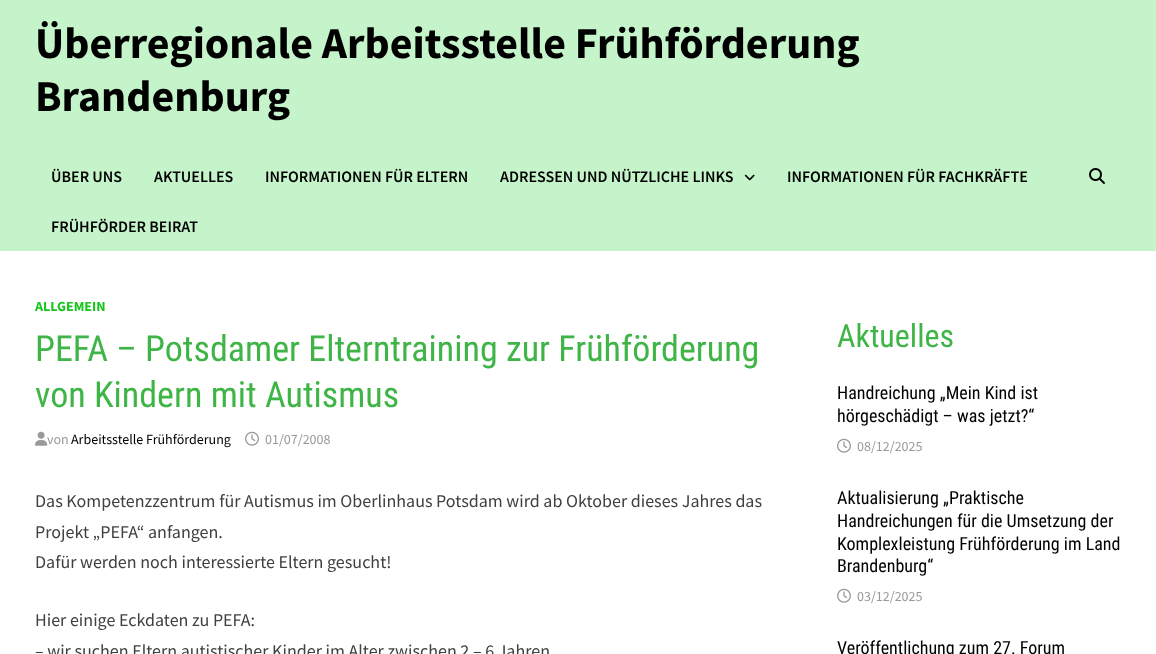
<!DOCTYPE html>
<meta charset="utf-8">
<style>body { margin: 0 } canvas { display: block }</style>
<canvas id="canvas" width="1156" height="654"></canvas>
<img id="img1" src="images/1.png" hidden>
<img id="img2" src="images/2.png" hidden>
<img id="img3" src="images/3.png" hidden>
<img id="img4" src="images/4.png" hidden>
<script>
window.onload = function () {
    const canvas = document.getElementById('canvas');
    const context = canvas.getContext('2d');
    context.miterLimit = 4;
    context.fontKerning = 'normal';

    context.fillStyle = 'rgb(255, 255, 255)';
    context.fillRect(0, 0, 1156, 654);
    context.fillStyle = 'rgb(198, 244, 202)';
    context.fillRect(0, 0, 1156, 251);
    context.drawImage(document.getElementById('img1'), 744, 174, 11, 7);
    context.drawImage(document.getElementById('img2'), 1089, 168, 16, 16);
    context.drawImage(document.getElementById('img3'), 35, 431, 13, 15);
    context.drawImage(document.getElementById('img4'), 245, 431, 14, 15);
    context.drawImage(document.getElementById('img4'), 837, 438, 14, 15);
    context.drawImage(document.getElementById('img4'), 837, 588, 14, 15);
    context.font = 'bold 44px Source Sans Pro';
    context.fillStyle = 'rgb(0, 0, 0)';
    context.fillText('Überregionale Arbeitsstelle Frühförderung', 35, 58);
    context.fillText('Brandenburg', 35, 111);
    context.font = '600 16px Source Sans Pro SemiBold';
    context.fillText('ÜBER UNS', 51, 182);
    context.fillText('AKTUELLES', 154, 182);
    context.fillText('INFORMATIONEN FÜR ELTERN', 265, 182);
    context.fillText('ADRESSEN UND NÜTZLICHE LINKS', 500, 182);
    context.fillText('INFORMATIONEN FÜR FACHKRÄFTE', 787, 182);
    context.fillText('FRÜHFÖRDER BEIRAT', 51, 232);
    context.font = 'bold 14px Source Sans Pro';
    context.fillStyle = 'rgb(25, 198, 31)';
    context.fillText('ALLGEMEIN', 35, 311);
    context.font = '36px Roboto Condensed';
    context.fillStyle = 'rgb(63, 181, 71)';
    context.fillText('PEFA – Potsdamer Elterntraining zur Frühförderung', 35, 361);
    context.fillText('von Kindern mit Autismus', 35, 407);
    context.font = '14px Source Sans Pro';
    context.fillStyle = 'rgb(153, 153, 153)';
    context.fillText('von', 47, 444);
    context.fillStyle = 'rgb(0, 0, 0)';
    context.fillText('Arbeitsstelle Frühförderung', 71, 444);
    context.fillStyle = 'rgb(153, 153, 153)';
    context.fillText('01/07/2008', 265, 444);
    context.font = '18px Source Sans Pro';
    context.fillStyle = 'rgb(64, 64, 64)';
    context.fillText('Das Kompetenzzentrum für Autismus im Oberlinhaus Potsdam wird ab Oktober dieses Jahres das', 35, 507);
    context.fillText('Projekt „PEFA“ anfangen.', 35, 538);
    context.fillText('Dafür werden noch interessierte Eltern gesucht!', 35, 568);
    context.fillText('Hier einige Eckdaten zu PEFA:', 35, 626);
    context.fillText('– wir suchen Eltern autistischer Kinder im Alter zwischen 2 – 6 Jahren', 35, 657);
    context.font = '32px Roboto Condensed';
    context.fillStyle = 'rgb(63, 181, 71)';
    context.fillText('Aktuelles', 837, 347);
    context.font = '18px Roboto Condensed';
    context.fillStyle = 'rgb(0, 0, 0)';
    context.fillText('Handreichung „Mein Kind ist', 837, 399);
    context.fillText('hörgeschädigt – was jetzt?“', 837, 422);
    context.font = '14px Source Sans Pro';
    context.fillStyle = 'rgb(153, 153, 153)';
    context.fillText('08/12/2025', 857, 451);
    context.font = '18px Roboto Condensed';
    context.fillStyle = 'rgb(0, 0, 0)';
    context.fillText('Aktualisierung „Praktische', 837, 504);
    context.fillText('Handreichungen für die Umsetzung der', 837, 527);
    context.fillText('Komplexleistung Frühförderung im Land', 837, 550);
    context.fillText('Brandenburg“', 837, 572);
    context.font = '14px Source Sans Pro';
    context.fillStyle = 'rgb(153, 153, 153)';
    context.fillText('03/12/2025', 857, 601);
    context.font = '18px Roboto Condensed';
    context.fillStyle = 'rgb(0, 0, 0)';
    context.fillText('Veröffentlichung zum 27. Forum', 837, 654);
};
</script>
